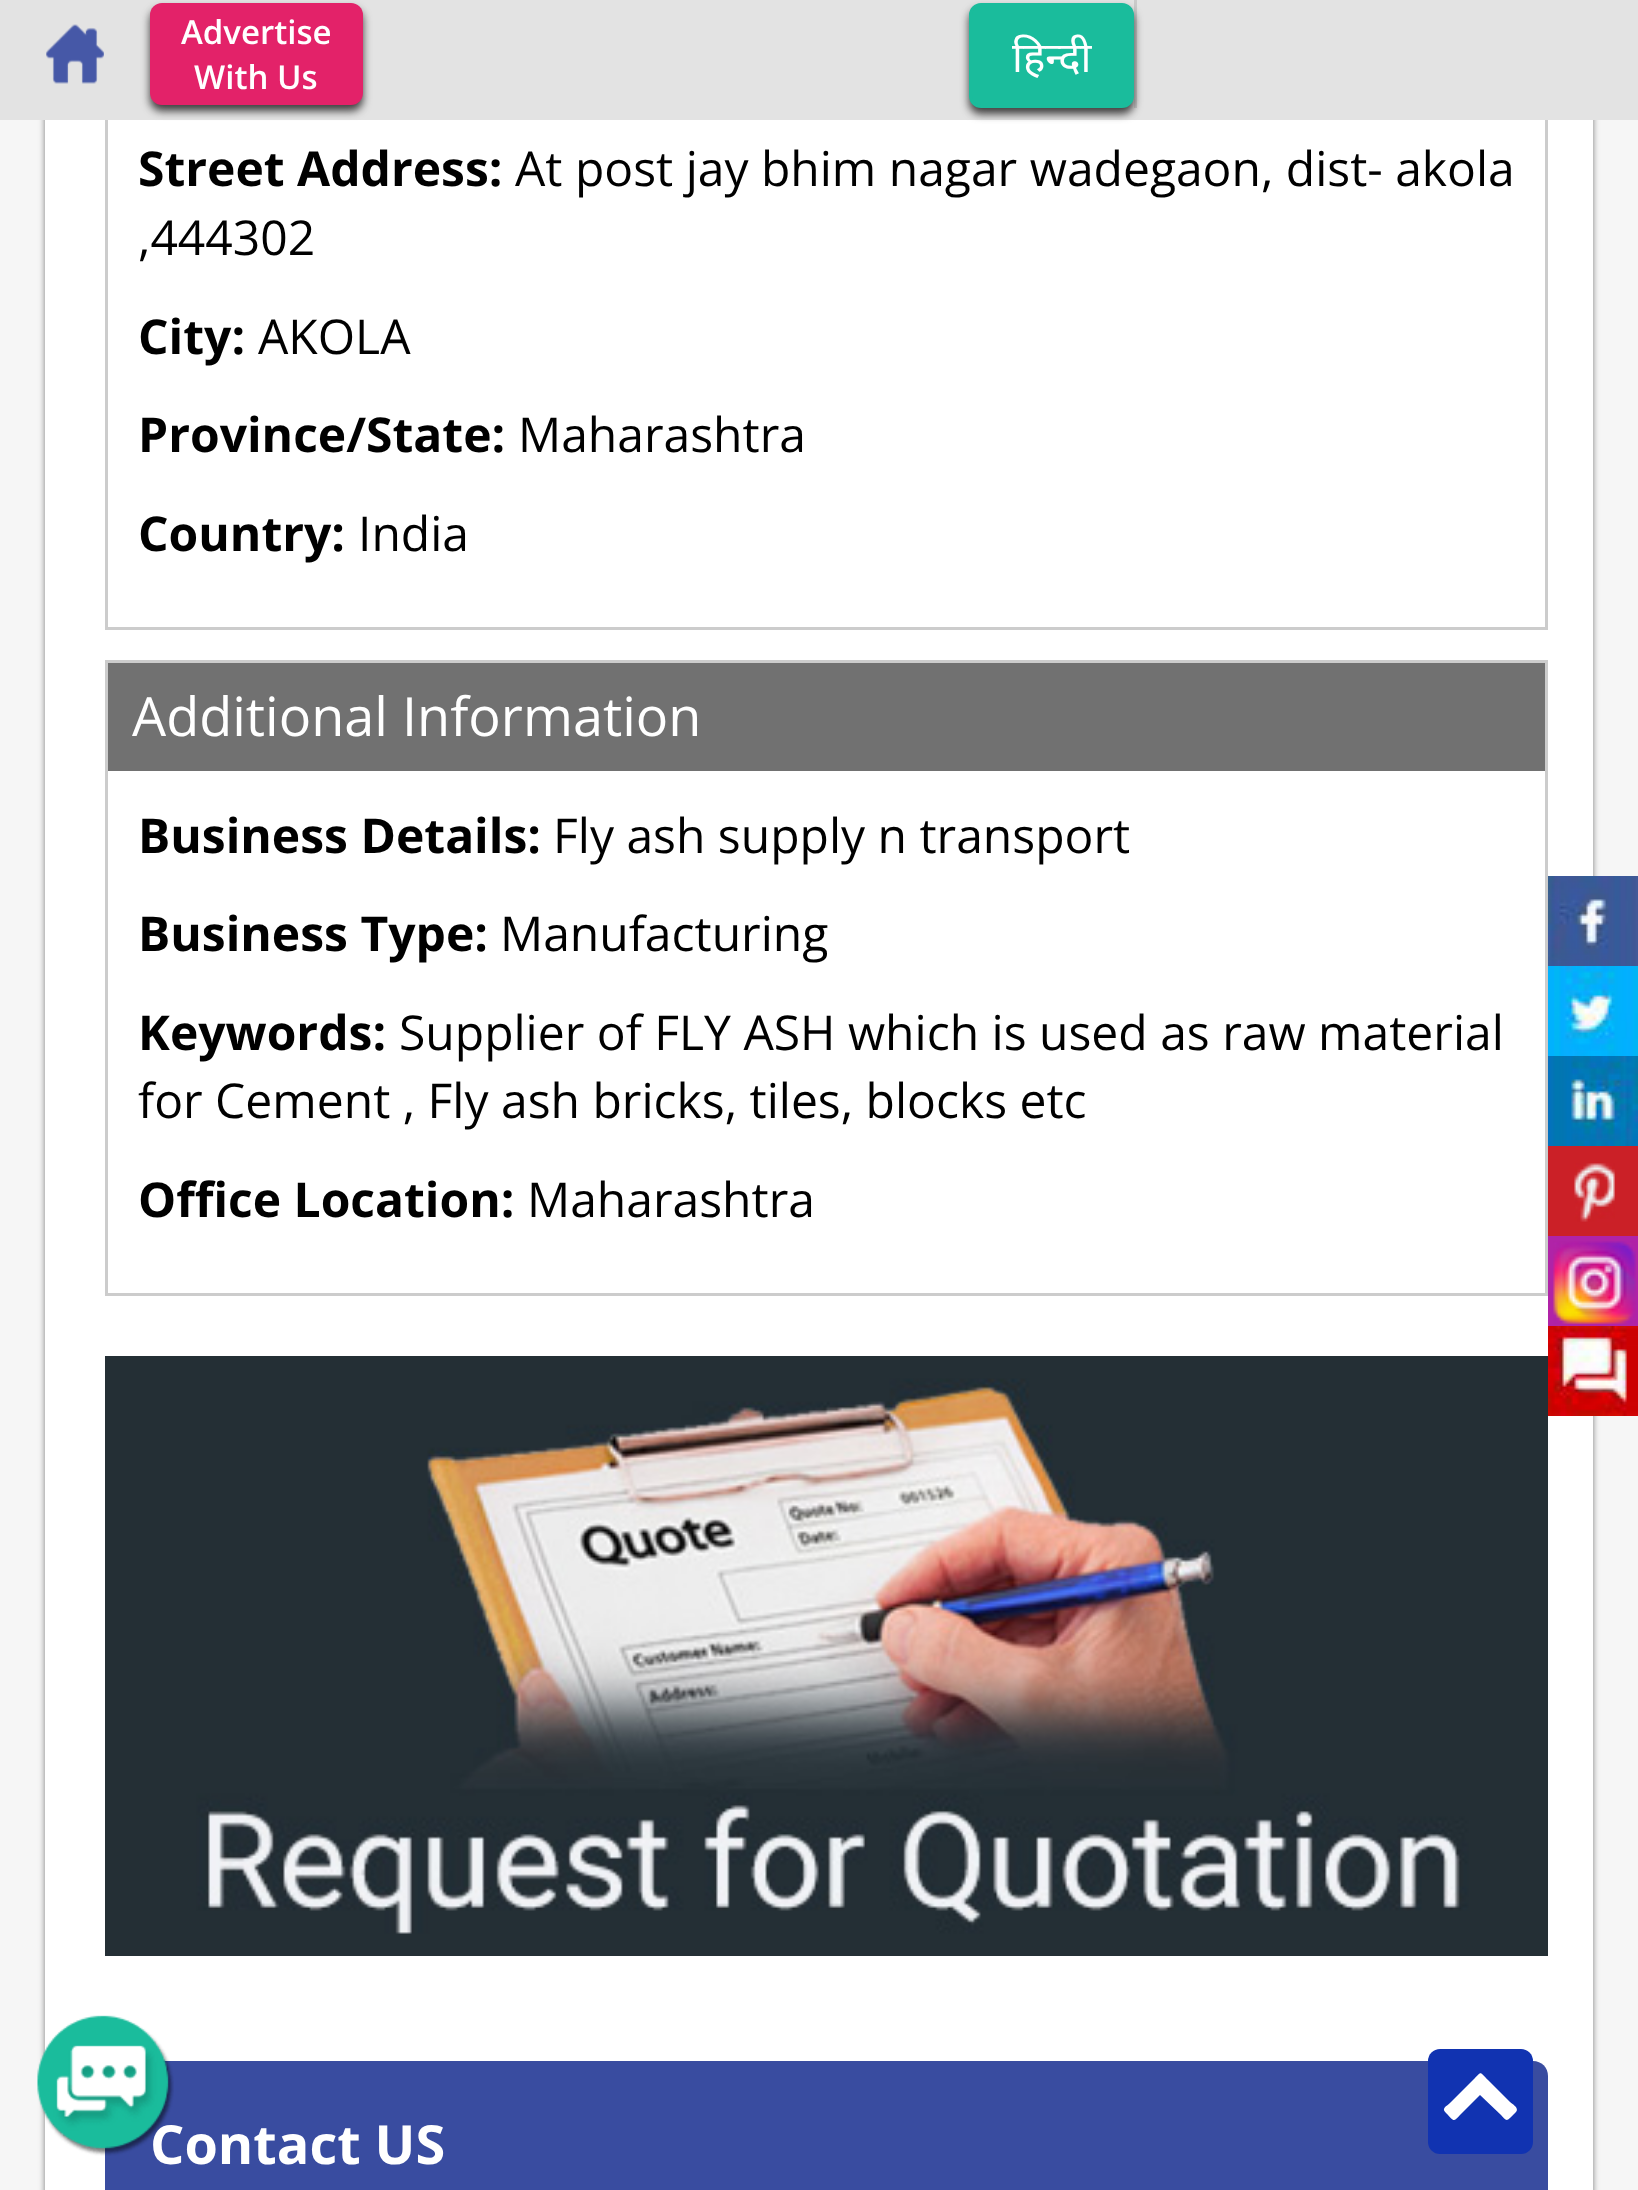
<!DOCTYPE html>
<meta charset="utf-8">
<style>body { margin: 0 } canvas { display: block }</style>
<canvas id="canvas" width="1638" height="2190"></canvas>
<img id="img1" src="images/1.png" hidden>
<img id="img2" src="images/2.png" hidden>
<img id="img3" src="images/3.png" hidden>
<img id="img4" src="images/4.png" hidden>
<img id="img5" src="images/5.png" hidden>
<img id="img6" src="images/6.png" hidden>
<img id="img7" src="images/7.png" hidden>
<img id="img8" src="images/8.png" hidden>
<img id="img9" src="images/9.png" hidden>
<script>
window.onload = function () {
    const canvas = document.getElementById('canvas');
    const context = canvas.getContext('2d');
    context.miterLimit = 4;
    context.fontKerning = 'normal';

    context.fillStyle = 'rgb(246, 246, 246)';
    context.fillRect(0, 0, 1638, 2190);
    context.fillStyle = 'rgba(0, 0, 0, 0.5)';
    context.filter = 'blur(3px)';
    context.beginPath();
    context.rect(45, -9, 1548, 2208);
    context.fill();
    context.filter = 'none';
    context.fillStyle = 'rgb(255, 255, 255)';
    context.fillRect(45, 120, 1548, 2070);
    context.strokeStyle = 'rgb(204, 204, 204)';
    context.lineWidth = 3;
    context.strokeRect(106.5, -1.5, 1440, 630);
    context.fillStyle = 'rgb(227, 227, 227)';
    context.fillRect(0, 0, 1638, 120);
    context.drawImage(document.getElementById('img1'), 46, 24, 58, 60);
    context.fillStyle = 'rgb(62, 61, 61)';
    context.filter = 'blur(4.5px)';
    context.beginPath();
    context.roundRect(150, 9, 213, 102, 12);
    context.fill();
    context.filter = 'none';
    context.fillStyle = 'rgb(227, 34, 105)';
    context.beginPath();
    context.roundRect(150, 3, 213, 102, 12);
    context.fill();
    context.fillStyle = 'rgb(202, 202, 202)';
    context.fillRect(1134, 0, 3, 108);
    context.fillStyle = 'rgb(62, 61, 61)';
    context.filter = 'blur(4.5px)';
    context.beginPath();
    context.roundRect(969, 9, 165, 105, 12);
    context.fill();
    context.filter = 'none';
    context.fillStyle = 'rgb(26, 188, 156)';
    context.beginPath();
    context.roundRect(970.5, 4.5, 162, 102, 10.5);
    context.fill();
    context.strokeStyle = 'rgb(26, 188, 156)';
    context.stroke();
    context.strokeStyle = 'rgb(204, 204, 204)';
    context.strokeRect(106.5, 661.5, 1440, 633);
    context.fillStyle = 'rgb(113, 113, 113)';
    context.fillRect(108, 663, 1437, 108);
    context.drawImage(document.getElementById('img2'), 105, 1356, 1443, 600);
    context.fillStyle = 'rgb(57, 76, 160)';
    context.beginPath();
    context.moveTo(120, 2061);
    context.lineTo(1533, 2061);
    context.bezierCurveTo(1541.5, 2061, 1548, 2067.5, 1548, 2076);
    context.lineTo(1548, 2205);
    context.lineTo(105, 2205);
    context.lineTo(105, 2076);
    context.bezierCurveTo(105, 2067.5, 111.5, 2061, 120, 2061);
    context.closePath();
    context.fill();
    context.drawImage(document.getElementById('img3'), 1548, 876, 90, 90);
    context.fillStyle = 'rgb(1, 177, 253)';
    context.fillRect(1548, 966, 6, 90);
    context.drawImage(document.getElementById('img4'), 1554, 966, 84, 90);
    context.drawImage(document.getElementById('img5'), 1548, 1056, 90, 90);
    context.fillStyle = 'rgb(203, 32, 39)';
    context.fillRect(1548, 1146, 90, 90);
    context.drawImage(document.getElementById('img6'), 1574, 1163, 41, 59);
    context.fillStyle = 'rgb(176, 35, 167)';
    context.fillRect(1548, 1236, 90, 90);
    context.drawImage(document.getElementById('img7'), 1553, 1241, 83, 83);
    context.drawImage(document.getElementById('img8'), 1548, 1326, 90, 90);
    context.fillStyle = 'rgb(17, 51, 177)';
    context.beginPath();
    context.roundRect(1428, 2049, 105, 105, 12);
    context.fill();
    context.fillStyle = 'rgb(255, 255, 255)';
    context.beginPath();
    context.moveTo(1516, 2112);
    context.lineTo(1510, 2118);
    context.bezierCurveTo(1506, 2122, 1505, 2119, 1501, 2115);
    context.lineTo(1480, 2095);
    context.lineTo(1460, 2115);
    context.bezierCurveTo(1453, 2123, 1454, 2121, 1446, 2113);
    context.bezierCurveTo(1441, 2108, 1446, 2107, 1451, 2102);
    context.lineTo(1473, 2080);
    context.bezierCurveTo(1482, 2071, 1479, 2071, 1488, 2080);
    context.lineTo(1510, 2102);
    context.bezierCurveTo(1511, 2103, 1520, 2108, 1516, 2112);
    context.closePath();
    context.fill();
    context.font = '600 33px Open Sans';
    context.fillText('Advertise', 181, 44);
    context.fillText('With Us', 194, 89);
    context.font = '42px Noto Sans';
    context.fillText('हिन्दी', 1012, 72);
    context.font = 'bold 48px Open Sans';
    context.fillStyle = 'rgb(0, 0, 0)';
    context.fillText('Street Address:', 138, 186);
    context.font = '48px Open Sans';
    context.fillText('At post jay bhim nagar wadegaon, dist- akola', 515, 186);
    context.fillText(',444302', 138, 255);
    context.font = 'bold 48px Open Sans';
    context.fillText('City:', 138, 354);
    context.font = '48px Open Sans';
    context.fillText('AKOLA', 258, 354);
    context.font = 'bold 48px Open Sans';
    context.fillText('Province/State:', 138, 452);
    context.font = '48px Open Sans';
    context.fillText('Maharashtra', 518, 452);
    context.font = 'bold 48px Open Sans';
    context.fillText('Country:', 138, 551);
    context.font = '48px Open Sans';
    context.fillText('India', 358, 551);
    context.font = '54px Open Sans';
    context.fillStyle = 'rgb(255, 255, 255)';
    context.fillText('Additional Information', 132, 736);
    context.font = 'bold 48px Open Sans';
    context.fillStyle = 'rgb(0, 0, 0)';
    context.fillText('Business Details:', 138, 853);
    context.font = '48px Open Sans';
    context.fillText('Fly ash supply n transport', 553, 853);
    context.font = 'bold 48px Open Sans';
    context.fillText('Business Type:', 138, 951);
    context.font = '48px Open Sans';
    context.fillText('Manufacturing', 500, 951);
    context.font = 'bold 48px Open Sans';
    context.fillText('Keywords:', 138, 1050);
    context.font = '48px Open Sans';
    context.fillText('Supplier of FLY ASH which is used as raw material', 399, 1050);
    context.fillText('for Cement , Fly ash bricks, tiles, blocks etc', 138, 1118);
    context.font = 'bold 48px Open Sans';
    context.fillText('Office Location:', 138, 1217);
    context.font = '48px Open Sans';
    context.fillText('Maharashtra', 527, 1217);
    context.font = 'bold 54px Open Sans';
    context.fillStyle = 'rgb(255, 255, 255)';
    context.fillText('Contact US', 150, 2164);
    context.drawImage(document.getElementById('img9'), 37, 2015, 137, 141);
};
</script>
